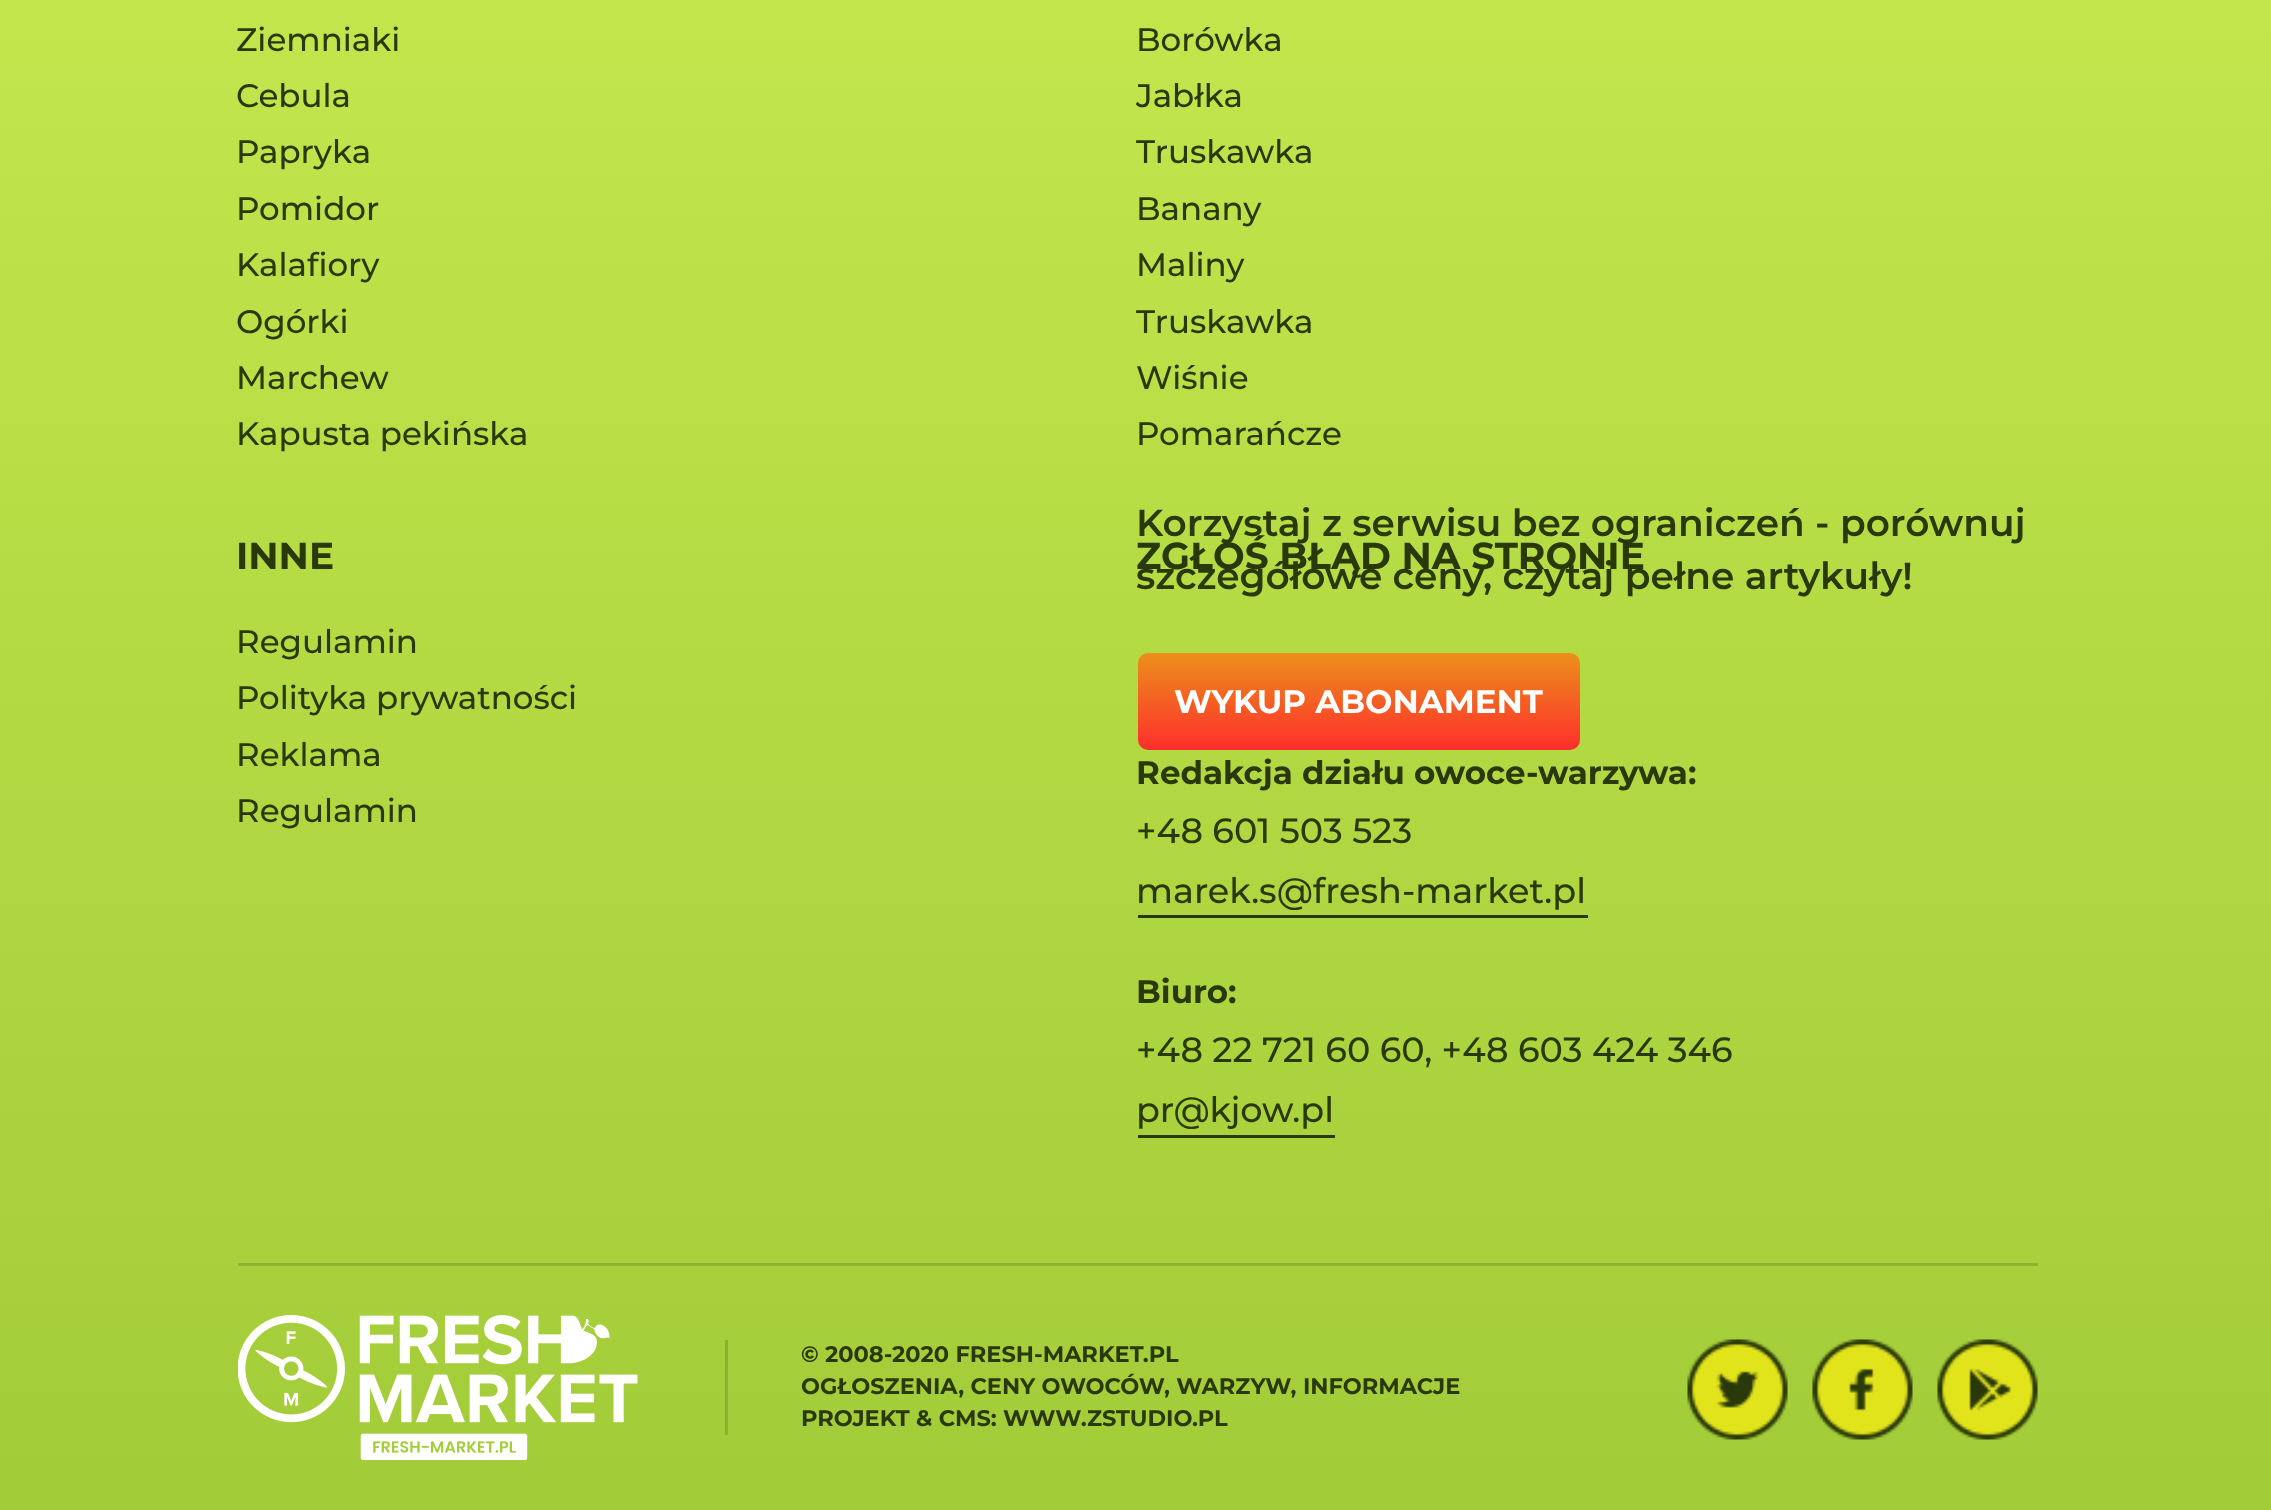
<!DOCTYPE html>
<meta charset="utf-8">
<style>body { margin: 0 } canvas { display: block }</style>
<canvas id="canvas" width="2271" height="1510"></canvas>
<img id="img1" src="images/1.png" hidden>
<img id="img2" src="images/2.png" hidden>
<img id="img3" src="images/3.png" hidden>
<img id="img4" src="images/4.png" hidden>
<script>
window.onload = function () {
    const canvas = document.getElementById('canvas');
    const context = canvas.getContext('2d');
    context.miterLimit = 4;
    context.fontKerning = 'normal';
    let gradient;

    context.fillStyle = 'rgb(255, 255, 255)';
    context.fillRect(0, 0, 2271, 1510);
    gradient = context.createLinearGradient(0, 1510, 0, -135);
    gradient.addColorStop(0, 'rgb(162, 204, 56)');
    gradient.addColorStop(1, 'rgb(197, 232, 78)');
    context.fillStyle = gradient;
    context.fillRect(0, 0, 2271, 1510);
    context.fillStyle = 'rgb(42, 57, 12)';
    context.fillRect(1138, 915, 450, 3);
    context.fillRect(1138, 1135, 197, 3);
    gradient = context.createLinearGradient(1138, 750, 1138, 653);
    gradient.addColorStop(0, 'rgb(254, 46, 43)');
    gradient.addColorStop(1, 'rgb(236, 144, 27)');
    context.fillStyle = gradient;
    context.beginPath();
    context.roundRect(1138, 653, 442, 97, 10);
    context.fill();
    context.drawImage(document.getElementById('img1'), 238, 1315, 400, 145);
    context.fillStyle = 'rgb(142, 178, 50)';
    context.fillRect(238, 1263, 1800, 3);
    context.fillStyle = 'rgb(140, 176, 48)';
    context.fillRect(725, 1340, 3, 95);
    context.drawImage(document.getElementById('img2'), 1687, 1339, 101, 101);
    context.drawImage(document.getElementById('img3'), 1812, 1339, 101, 101);
    context.drawImage(document.getElementById('img4'), 1937, 1339, 101, 101);
    context.font = '500 32.5px Montserrat';
    context.fillStyle = 'rgb(42, 57, 12)';
    context.fillText('Ziemniaki', 236, 51);
    context.fillText('Cebula', 236, 107);
    context.fillText('Papryka', 236, 163);
    context.fillText('Pomidor', 236, 220);
    context.fillText('Kalafiory', 236, 276);
    context.fillText('Ogórki', 236, 333);
    context.fillText('Marchew', 236, 389);
    context.fillText('Kapusta pekińska', 236, 445);
    context.fillText('Borówka', 1136, 51);
    context.fillText('Jabłka', 1136, 107);
    context.fillText('Truskawka', 1136, 163);
    context.fillText('Banany', 1136, 220);
    context.fillText('Maliny', 1136, 276);
    context.fillText('Truskawka', 1136, 333);
    context.fillText('Wiśnie', 1136, 389);
    context.fillText('Pomarańcze', 1136, 445);
    context.font = 'bold 37.5px Montserrat';
    context.fillText('INNE', 236, 569);
    context.font = '500 32.5px Montserrat';
    context.fillText('Regulamin', 236, 653);
    context.fillText('Polityka prywatności', 236, 709);
    context.fillText('Reklama', 236, 766);
    context.fillText('Regulamin', 236, 822);
    context.font = 'bold 37.5px Montserrat';
    context.fillText('ZGŁOŚ BŁĄD NA STRONIE', 1136, 569);
    context.font = 'bold 32.5px Montserrat';
    context.fillText('Redakcja działu owoce-warzywa:', 1136, 784);
    context.font = '500 35px Montserrat';
    context.fillText('+48 601 503 523', 1136, 843);
    context.fillText('marek.s@fresh-market.pl', 1136, 903);
    context.font = 'bold 32.5px Montserrat';
    context.fillText('Biuro:', 1136, 1003);
    context.font = '500 35px Montserrat';
    context.fillText('+48 22 721 60 60, +48 603 424 346', 1136, 1062);
    context.fillText('pr@kjow.pl', 1136, 1122);
    context.font = '600 37.5px Montserrat';
    context.fillText('Korzystaj z serwisu bez ograniczeń - porównuj', 1136, 536);
    context.fillText('szczegółowe ceny, czytaj pełne artykuły!', 1136, 589);
    context.font = 'bold 32.5px Montserrat';
    context.fillStyle = 'rgb(255, 255, 255)';
    context.fillText('WYKUP ABONAMENT', 1174, 713);
    context.font = 'bold 22.5px Montserrat';
    context.fillStyle = 'rgb(42, 57, 12)';
    context.fillText('© 2008-2020 FRESH-MARKET.PL', 801, 1362);
    context.fillText('OGŁOSZENIA, CENY OWOCÓW, WARZYW, INFORMACJE', 801, 1394);
    context.fillText('PROJEKT & CMS: WWW.ZSTUDIO.PL', 801, 1426);
};
</script>
